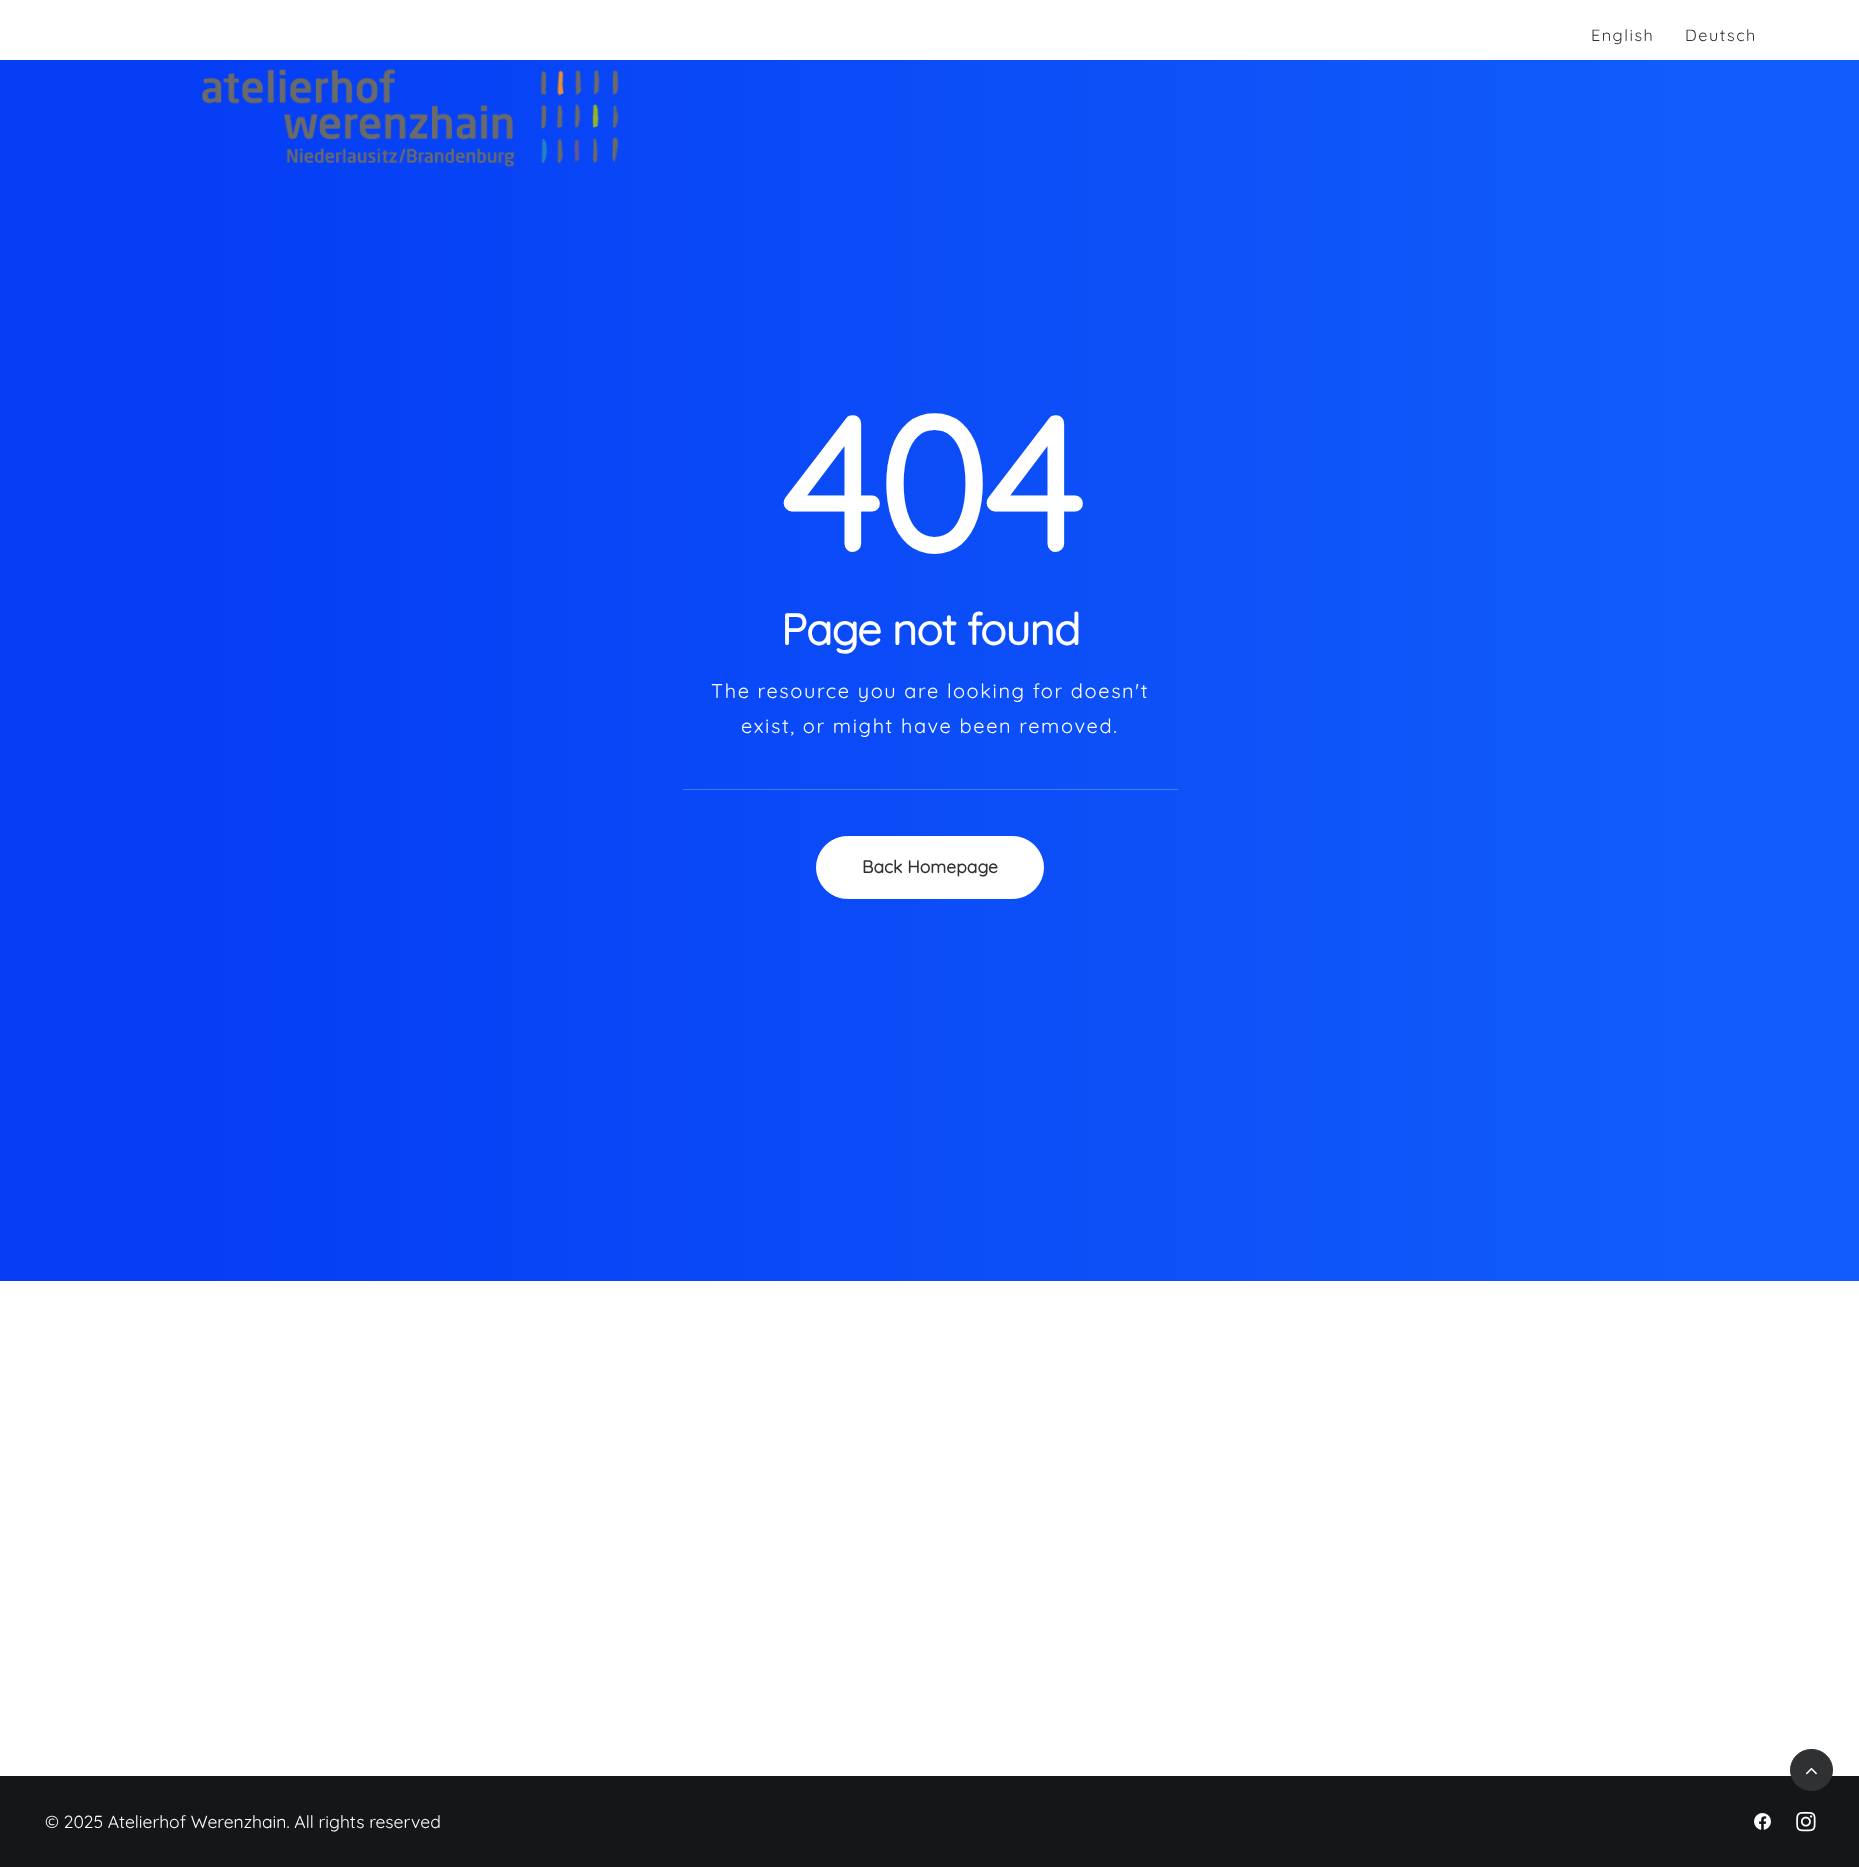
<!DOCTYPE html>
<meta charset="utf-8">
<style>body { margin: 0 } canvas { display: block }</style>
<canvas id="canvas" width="1859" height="1867"></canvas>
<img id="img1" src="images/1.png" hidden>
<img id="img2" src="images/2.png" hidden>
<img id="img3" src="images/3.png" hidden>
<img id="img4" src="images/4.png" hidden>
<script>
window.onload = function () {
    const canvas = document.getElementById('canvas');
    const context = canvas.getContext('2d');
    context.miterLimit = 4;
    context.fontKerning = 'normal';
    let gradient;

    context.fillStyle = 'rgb(255, 255, 255)';
    context.fillRect(0, 0, 1859, 1867);
    gradient = context.createLinearGradient(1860, 652, 0, 652);
    gradient.addColorStop(0.09, 'rgb(17, 92, 250)');
    gradient.addColorStop(0.91, 'rgb(5, 61, 245)');
    context.fillStyle = gradient;
    context.fillRect(0, 60, 1859, 1221);
    context.drawImage(document.getElementById('img1'), 201, 69, 418, 98);
    gradient = context.createLinearGradient(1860, 652, 0, 652);
    gradient.addColorStop(0.09, 'rgb(77, 133, 251)');
    gradient.addColorStop(0.91, 'rgb(68, 110, 248)');
    context.fillStyle = gradient;
    context.fillRect(683, 789, 495, 1);
    context.fillStyle = 'rgb(255, 255, 255)';
    context.beginPath();
    context.roundRect(816.5, 836.5, 227, 62, 31);
    context.fill();
    context.strokeStyle = 'rgb(255, 255, 255)';
    context.stroke();
    context.fillStyle = 'rgb(20, 22, 24)';
    context.fillRect(0, 1776, 1859, 91);
    context.drawImage(document.getElementById('img2'), 1754, 1813, 17, 17);
    context.drawImage(document.getElementById('img3'), 1796, 1811, 20, 21);
    context.fillStyle = 'rgb(48, 49, 51)';
    context.beginPath();
    context.roundRect(1790.5, 1749.5, 42, 41, 20.5);
    context.fill();
    context.strokeStyle = 'rgb(48, 49, 51)';
    context.stroke();
    context.drawImage(document.getElementById('img4'), 1805, 1767, 12, 8);
    context.letterSpacing = '1.5px';
    context.font = '16.25px Quicksand';
    context.fillText('English', 1591, 41);
    context.fillText('Deutsch', 1685, 41);
    context.letterSpacing = '-4px';
    context.font = 'bold 188px Quicksand';
    context.fillStyle = 'rgb(255, 255, 255)';
    context.fillText('404', 781, 552);
    context.letterSpacing = '-0.9px';
    context.font = 'bold 43.75px Quicksand';
    context.fillText('Page not found', 781, 645);
    context.letterSpacing = '1.6px';
    context.font = '20px Quicksand';
    context.fillText('The resource you are looking for doesn\'t', 711, 698);
    context.fillText('exist, or might have been removed.', 741, 733);
    context.letterSpacing = '0px';
    context.font = 'bold 17.5px Quicksand';
    context.fillStyle = 'rgb(48, 49, 51)';
    context.fillText('Back Homepage', 862, 873);
    context.font = '17.5px Quicksand';
    context.fillStyle = 'rgb(255, 255, 255)';
    context.fillText('© 2025 Atelierhof Werenzhain. All rights reserved', 45, 1828);
};
</script>
